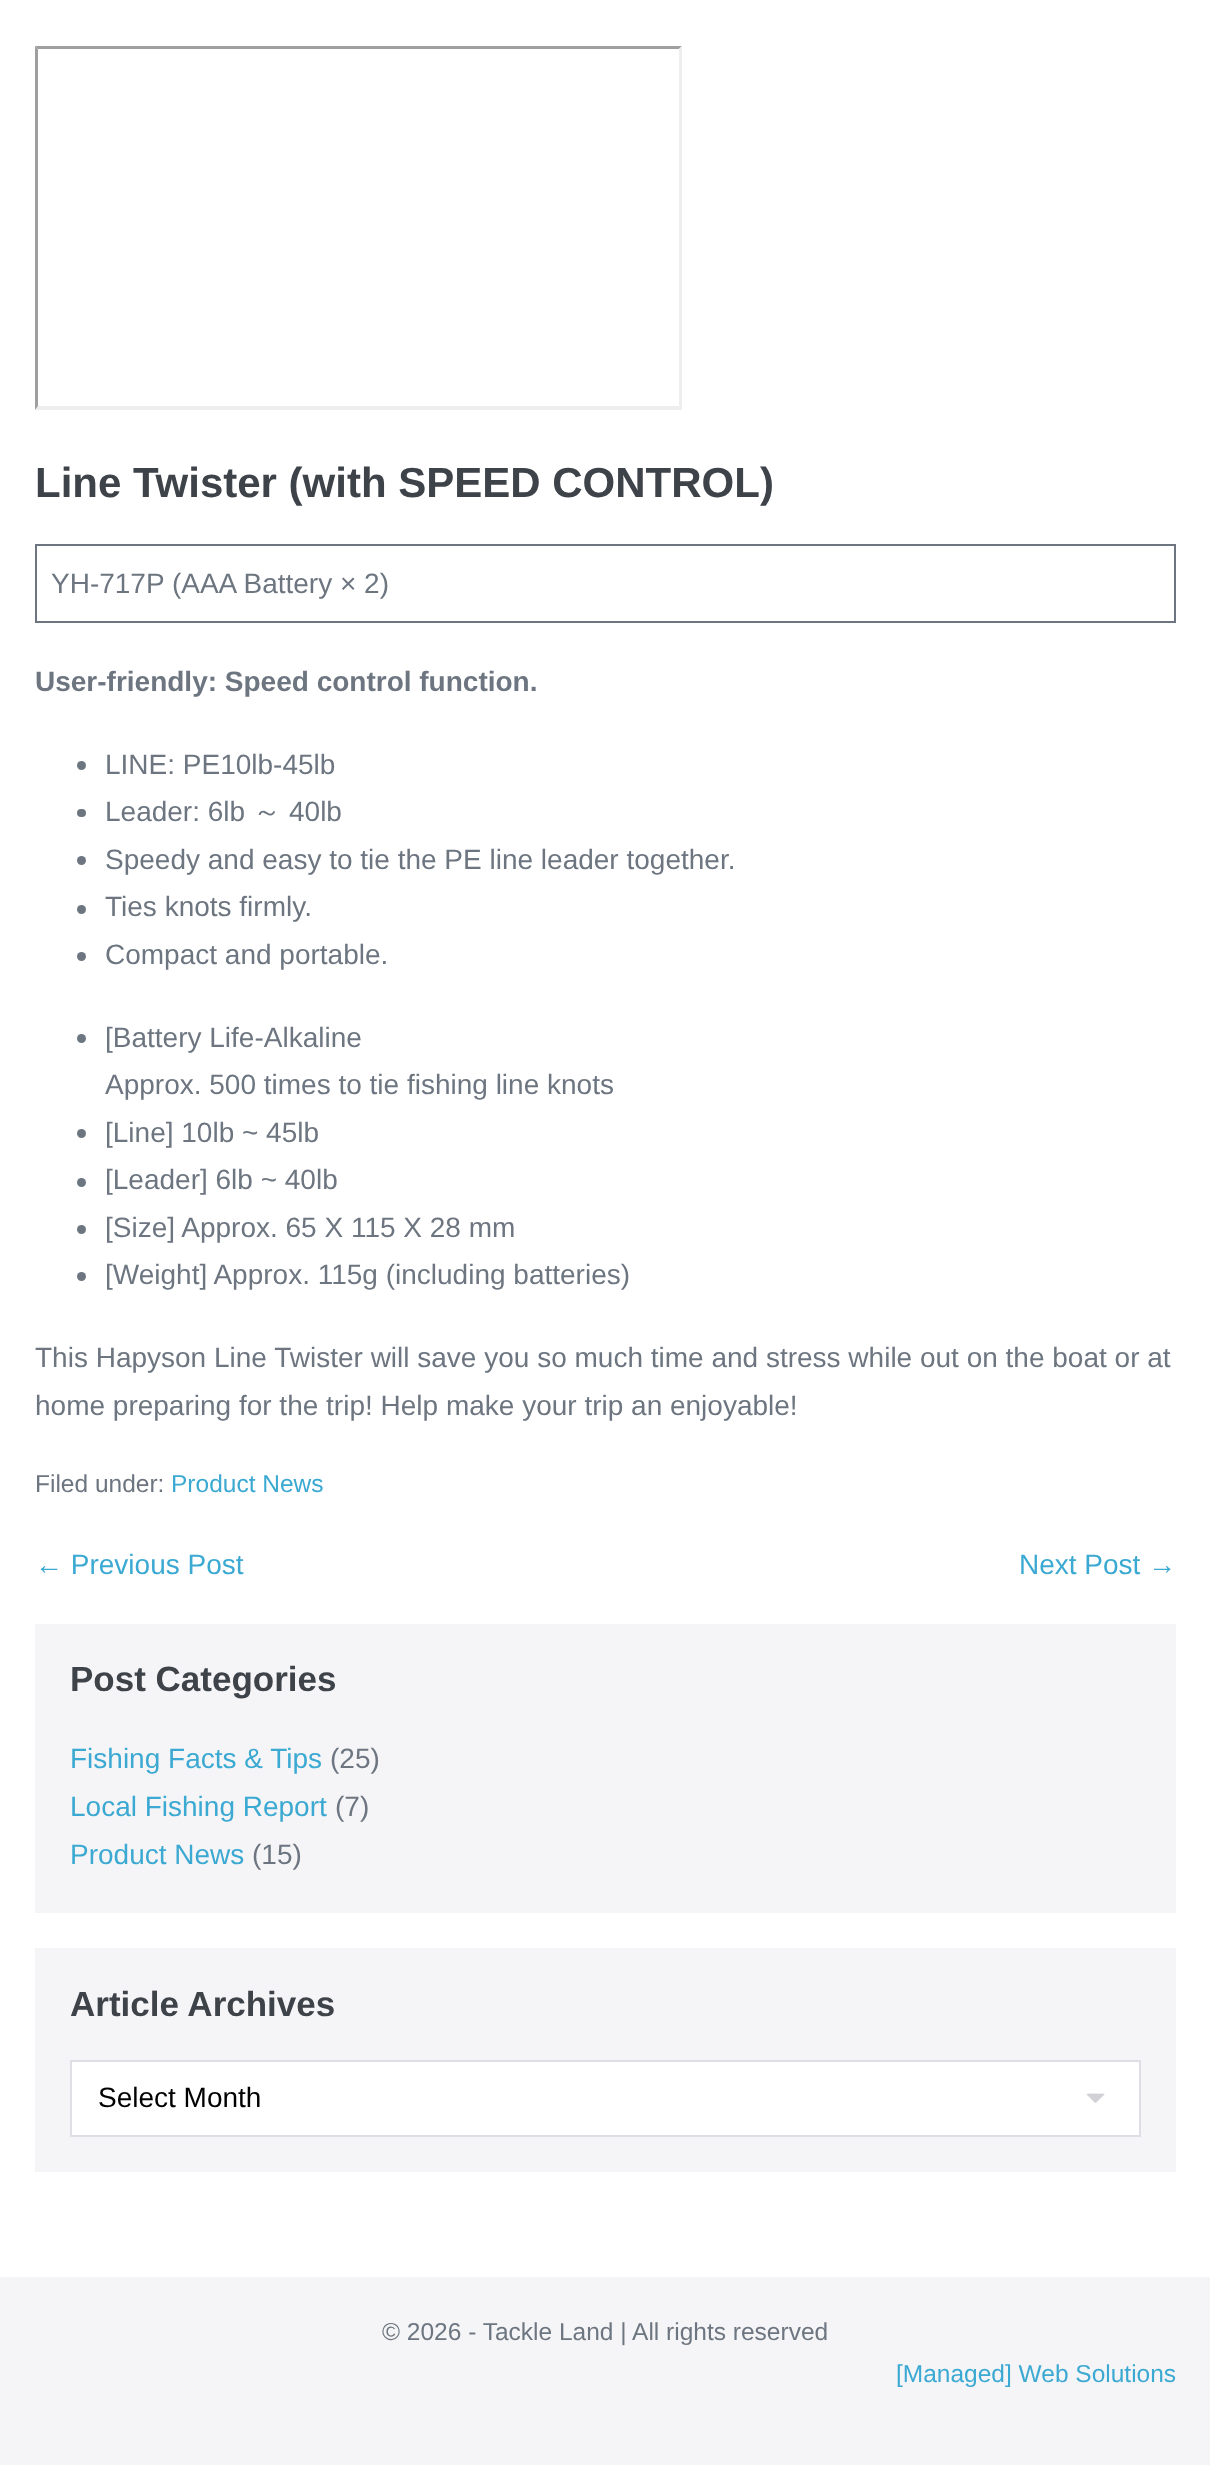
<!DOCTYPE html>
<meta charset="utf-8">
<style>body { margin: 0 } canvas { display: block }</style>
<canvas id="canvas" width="1210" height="2465"></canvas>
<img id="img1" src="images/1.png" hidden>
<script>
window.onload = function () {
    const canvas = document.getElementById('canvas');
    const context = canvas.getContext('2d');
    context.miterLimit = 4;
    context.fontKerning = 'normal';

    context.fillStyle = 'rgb(255, 255, 255)';
    context.fillRect(0, 0, 1210, 2465);
    context.fillStyle = 'rgb(159, 159, 159)';
    context.beginPath();
    context.moveTo(35, 46);
    context.lineTo(682, 46);
    context.lineTo(679, 49);
    context.lineTo(38, 49);
    context.closePath();
    context.fill();
    context.fillStyle = 'rgb(238, 238, 238)';
    context.beginPath();
    context.moveTo(682, 46);
    context.lineTo(682, 410);
    context.lineTo(679, 406);
    context.lineTo(679, 49);
    context.closePath();
    context.fill();
    context.beginPath();
    context.moveTo(682, 410);
    context.lineTo(35, 410);
    context.lineTo(38, 406);
    context.lineTo(679, 406);
    context.closePath();
    context.fill();
    context.fillStyle = 'rgb(159, 159, 159)';
    context.beginPath();
    context.moveTo(35, 410);
    context.lineTo(35, 46);
    context.lineTo(38, 49);
    context.lineTo(38, 406);
    context.closePath();
    context.fill();
    context.fillStyle = 'rgb(109, 118, 128)';
    context.fillRect(35, 544, 1141, 2);
    context.fillRect(1174, 544, 2, 79);
    context.fillRect(35, 621, 1141, 2);
    context.fillRect(35, 544, 2, 79);
    context.beginPath();
    context.arc(81.5, 765.5, 4.5, 0, 2 * Math.PI);
    context.fill();
    context.beginPath();
    context.roundRect(77, 809, 9, 8, 4);
    context.fill();
    context.beginPath();
    context.arc(81.5, 860.5, 4.5, 0, 2 * Math.PI);
    context.fill();
    context.beginPath();
    context.arc(81.5, 909.5, 4.5, 0, 2 * Math.PI);
    context.fill();
    context.beginPath();
    context.arc(81.5, 956.5, 4.5, 0, 2 * Math.PI);
    context.fill();
    context.beginPath();
    context.arc(81.5, 1038.5, 4.5, 0, 2 * Math.PI);
    context.fill();
    context.beginPath();
    context.arc(81.5, 1133.5, 4.5, 0, 2 * Math.PI);
    context.fill();
    context.beginPath();
    context.arc(81.5, 1182.5, 4.5, 0, 2 * Math.PI);
    context.fill();
    context.beginPath();
    context.arc(81.5, 1229.5, 4.5, 0, 2 * Math.PI);
    context.fill();
    context.beginPath();
    context.arc(81.5, 1276.5, 4.5, 0, 2 * Math.PI);
    context.fill();
    context.fillStyle = 'rgb(245, 245, 247)';
    context.fillRect(35, 1624, 1141, 289);
    context.fillRect(35, 1948, 1141, 224);
    context.fillStyle = 'rgb(255, 255, 255)';
    context.fillRect(72, 2062, 1067, 73);
    context.drawImage(document.getElementById('img1'), 1086, 2093, 19, 10);
    context.strokeStyle = 'rgb(222, 222, 229)';
    context.lineWidth = 2;
    context.strokeRect(71, 2061, 1069, 75);
    context.fillStyle = 'rgb(245, 245, 247)';
    context.fillRect(0, 2277, 1210, 188);
    context.font = 'bold 42px Liberation Sans';
    context.fillStyle = 'rgb(62, 67, 73)';
    context.fillText('Line Twister (with SPEED CONTROL)', 35, 497);
    context.font = '28px Liberation Sans';
    context.fillStyle = 'rgb(109, 118, 128)';
    context.fillText('YH-717P (AAA Battery × 2)', 51, 593);
    context.font = 'bold 28px Liberation Sans';
    context.fillText('User-friendly: Speed control function.', 35, 691);
    context.font = '28px Liberation Sans';
    context.fillText('LINE: PE10lb-45lb', 105, 774);
    context.fillText('Leader: 6lb', 105, 821);
    context.font = '500 28px WenQuanYi Zen Hei';
    context.fillText('～', 253, 821);
    context.font = '28px Liberation Sans';
    context.fillText('40lb', 289, 821);
    context.fillText('Speedy and easy to tie the PE line leader together.', 105, 869);
    context.fillText('Ties knots firmly.', 105, 916);
    context.fillText('Compact and portable.', 105, 964);
    context.fillText('[Battery Life-Alkaline', 105, 1047);
    context.fillText('Approx. 500 times to tie fishing line knots', 105, 1094);
    context.fillText('[Line] 10lb ~ 45lb', 105, 1142);
    context.fillText('[Leader] 6lb ~ 40lb', 105, 1189);
    context.fillText('[Size] Approx. 65 X 115 X 28 mm', 105, 1237);
    context.fillText('[Weight] Approx. 115g (including batteries)', 105, 1284);
    context.fillText('This Hapyson Line Twister will save you so much time and stress while out on the boat or at', 35, 1367);
    context.fillText('home preparing for the trip! Help make your trip an enjoyable!', 35, 1415);
    context.font = '24.5px Liberation Sans';
    context.fillText('Filed under:', 35, 1492);
    context.fillStyle = 'rgb(59, 169, 210)';
    context.fillText('Product News', 171, 1492);
    context.font = '28px Liberation Sans';
    context.fillText('← Previous Post', 35, 1574);
    context.fillText('Next Post →', 1019, 1574);
    context.font = 'bold 35px Liberation Sans';
    context.fillStyle = 'rgb(62, 67, 73)';
    context.fillText('Post Categories', 70, 1691);
    context.font = '28px Liberation Sans';
    context.fillStyle = 'rgb(59, 169, 210)';
    context.fillText('Fishing Facts & Tips', 70, 1768);
    context.fillStyle = 'rgb(109, 118, 128)';
    context.fillText('(25)', 330, 1768);
    context.fillStyle = 'rgb(59, 169, 210)';
    context.fillText('Local Fishing Report', 70, 1816);
    context.fillStyle = 'rgb(109, 118, 128)';
    context.fillText('(7)', 335, 1816);
    context.fillStyle = 'rgb(59, 169, 210)';
    context.fillText('Product News', 70, 1864);
    context.fillStyle = 'rgb(109, 118, 128)';
    context.fillText('(15)', 252, 1864);
    context.font = 'bold 35px Liberation Sans';
    context.fillStyle = 'rgb(62, 67, 73)';
    context.fillText('Article Archives', 70, 2016);
    context.font = '28px Liberation Sans';
    context.fillStyle = 'rgb(0, 0, 0)';
    context.fillText('Select Month', 98, 2107);
    context.font = '24.5px Liberation Sans';
    context.fillStyle = 'rgb(109, 118, 128)';
    context.fillText('© 2026 - Tackle Land | All rights reserved', 382, 2340);
    context.fillStyle = 'rgb(59, 169, 210)';
    context.fillText('[Managed] Web Solutions', 896, 2382);
};
</script>
